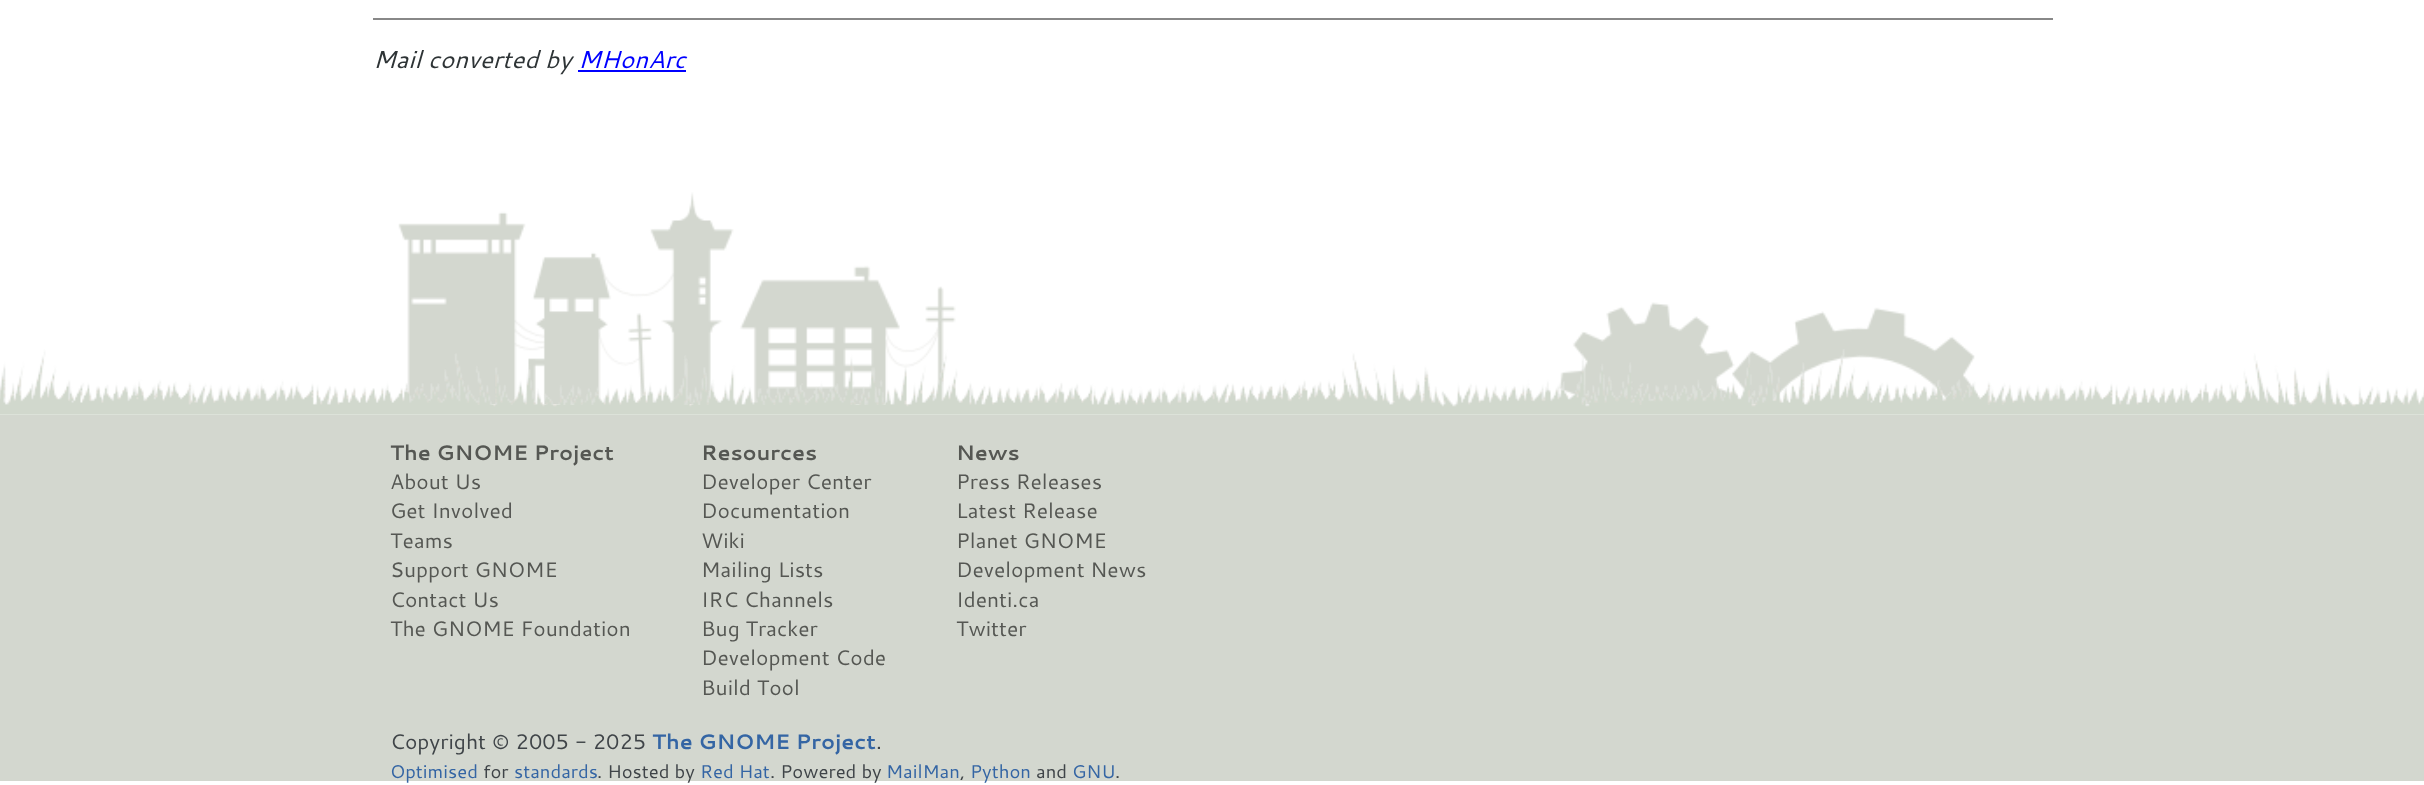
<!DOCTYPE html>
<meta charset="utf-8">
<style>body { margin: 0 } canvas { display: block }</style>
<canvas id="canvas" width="2424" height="785"></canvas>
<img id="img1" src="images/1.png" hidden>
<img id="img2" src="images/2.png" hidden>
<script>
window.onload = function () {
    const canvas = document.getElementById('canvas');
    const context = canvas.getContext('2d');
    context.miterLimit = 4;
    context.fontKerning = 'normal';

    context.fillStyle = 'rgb(255, 255, 255)';
    context.fillRect(0, 0, 2424, 785);
    context.fillStyle = 'rgb(136, 136, 136)';
    context.fillRect(373, 18, 1680, 2);
    context.fillStyle = 'rgb(0, 0, 255)';
    context.fillRect(578, 70, 108, 2);
    context.drawImage(document.getElementById('img1'), 398, 192, 1608, 213);
    context.drawImage(document.getElementById('img2'), 0, 349, 2424, 66);
    context.fillStyle = 'rgb(211, 215, 207)';
    context.fillRect(0, 415, 2424, 366);
    context.font = 'italic 24.5px Cantarell';
    context.fillStyle = 'rgb(46, 52, 54)';
    context.fillText('Mail converted by', 373, 68);
    context.fillStyle = 'rgb(0, 0, 255)';
    context.fillText('MHonArc', 578, 68);
    context.font = 'bold 21px Cantarell';
    context.fillStyle = 'rgb(85, 87, 83)';
    context.fillText('The GNOME Project', 390, 460);
    context.font = '21px Cantarell';
    context.fillText('About Us', 390, 489);
    context.fillText('Get Involved', 390, 518);
    context.fillText('Teams', 390, 548);
    context.fillText('Support GNOME', 390, 577);
    context.fillText('Contact Us', 390, 607);
    context.fillText('The GNOME Foundation', 390, 636);
    context.font = 'bold 21px Cantarell';
    context.fillText('Resources', 701, 460);
    context.font = '21px Cantarell';
    context.fillText('Developer Center', 701, 489);
    context.fillText('Documentation', 701, 518);
    context.fillText('Wiki', 701, 548);
    context.fillText('Mailing Lists', 701, 577);
    context.fillText('IRC Channels', 701, 607);
    context.fillText('Bug Tracker', 701, 636);
    context.fillText('Development Code', 701, 665);
    context.fillText('Build Tool', 701, 695);
    context.font = 'bold 21px Cantarell';
    context.fillText('News', 956, 460);
    context.font = '21px Cantarell';
    context.fillText('Press Releases', 956, 489);
    context.fillText('Latest Release', 956, 518);
    context.fillText('Planet GNOME', 956, 548);
    context.fillText('Development News', 956, 577);
    context.fillText('Identi.ca', 956, 607);
    context.fillText('Twitter', 956, 636);
    context.fillStyle = 'rgb(63, 68, 72)';
    context.fillText('Copyright © 2005 - 2025', 390, 749);
    context.font = 'bold 21px Cantarell';
    context.fillStyle = 'rgb(52, 101, 164)';
    context.fillText('The GNOME Project', 652, 749);
    context.font = '21px Cantarell';
    context.fillStyle = 'rgb(63, 68, 72)';
    context.fillText('.', 876, 749);
    context.font = '18.5px Cantarell';
    context.fillStyle = 'rgb(52, 101, 164)';
    context.fillText('Optimised', 390, 778);
    context.fillStyle = 'rgb(63, 68, 72)';
    context.fillText('for', 483, 778);
    context.fillStyle = 'rgb(52, 101, 164)';
    context.fillText('standards', 514, 778);
    context.fillStyle = 'rgb(63, 68, 72)';
    context.fillText('. Hosted by', 597, 778);
    context.fillStyle = 'rgb(52, 101, 164)';
    context.fillText('Red Hat', 700, 778);
    context.fillStyle = 'rgb(63, 68, 72)';
    context.fillText('. Powered by', 770, 778);
    context.fillStyle = 'rgb(52, 101, 164)';
    context.fillText('MailMan', 886, 778);
    context.fillStyle = 'rgb(63, 68, 72)';
    context.fillText(',', 960, 778);
    context.fillStyle = 'rgb(52, 101, 164)';
    context.fillText('Python', 970, 778);
    context.fillStyle = 'rgb(63, 68, 72)';
    context.fillText('and', 1036, 778);
    context.fillStyle = 'rgb(52, 101, 164)';
    context.fillText('GNU', 1072, 778);
    context.fillStyle = 'rgb(63, 68, 72)';
    context.fillText('.', 1115, 778);
};
</script>
